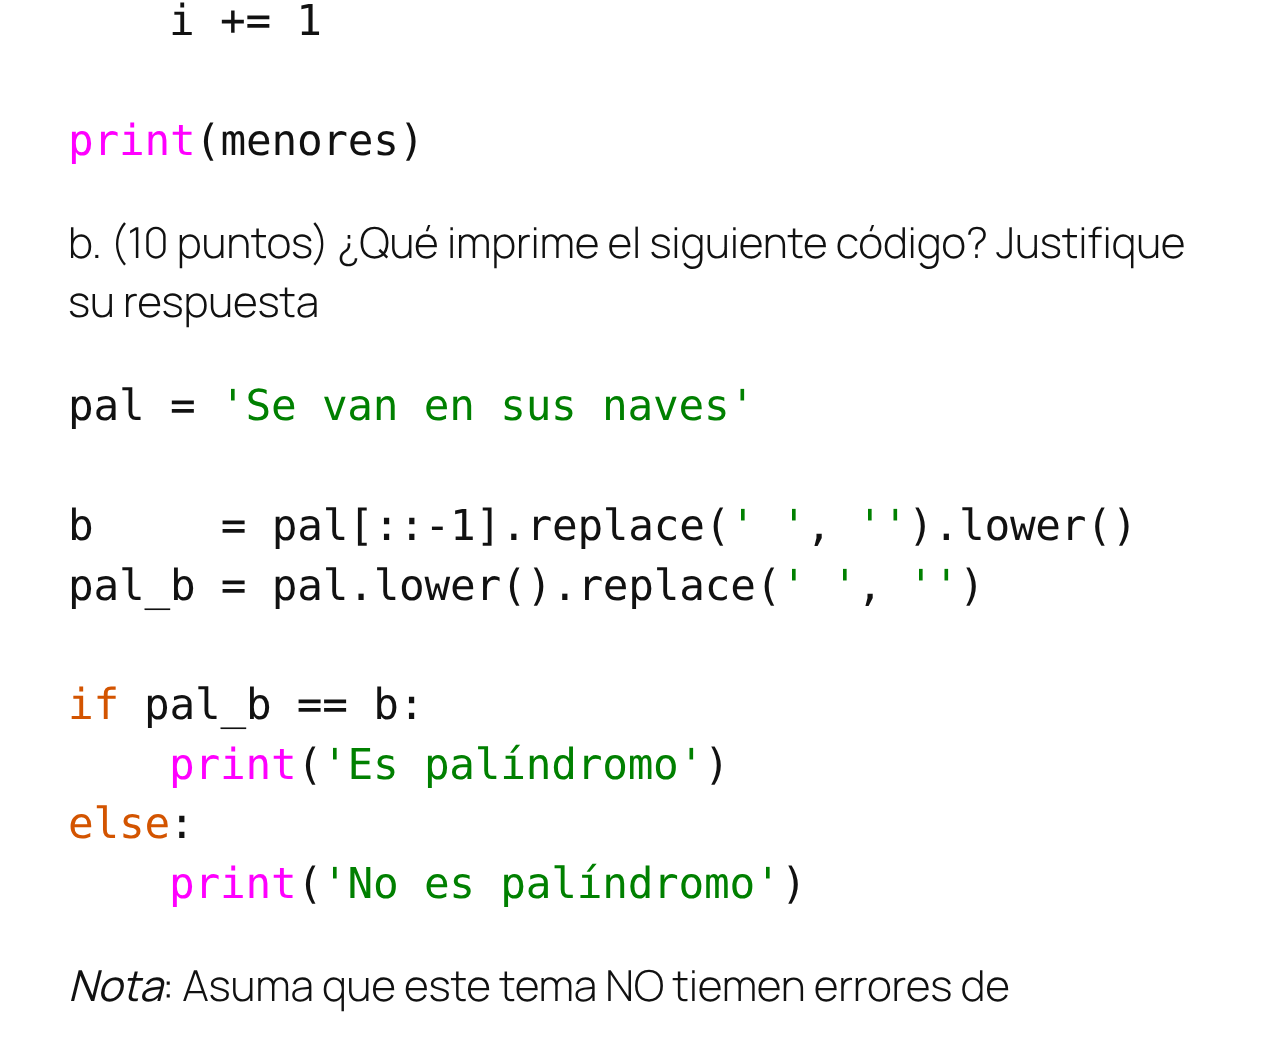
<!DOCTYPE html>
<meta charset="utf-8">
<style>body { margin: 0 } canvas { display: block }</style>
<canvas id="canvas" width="1280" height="1047"></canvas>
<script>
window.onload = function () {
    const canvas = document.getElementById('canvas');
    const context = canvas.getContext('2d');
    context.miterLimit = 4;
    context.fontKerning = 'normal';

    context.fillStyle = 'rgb(255, 255, 255)';
    context.fillRect(0, 0, 1280, 1047);
    context.letterSpacing = '-0.23px';
    context.font = '42.7px DejaVu Sans Mono';
    context.fillStyle = 'rgb(17, 17, 17)';
    context.fillText('i += 1', 169, 35);
    context.fillStyle = 'rgb(255, 0, 255)';
    context.fillText('print', 68, 155);
    context.fillStyle = 'rgb(17, 17, 17)';
    context.fillText('(menores)', 195, 155);
    context.font = '300 42.7px Manrope';
    context.fillText('b. (10 puntos) ¿Qué imprime el siguiente código? Justifique', 68, 258);
    context.fillText('su respuesta', 68, 317);
    context.font = '42.7px DejaVu Sans Mono';
    context.fillText('pal =', 68, 420);
    context.fillStyle = 'rgb(0, 128, 0)';
    context.fillText('\'Se van en sus naves\'', 220, 420);
    context.fillStyle = 'rgb(17, 17, 17)';
    context.fillText('b     = pal[::-1].replace(', 68, 540);
    context.fillStyle = 'rgb(0, 128, 0)';
    context.fillText('\' \'', 730, 540);
    context.fillText('\'\'', 857, 540);
    context.fillStyle = 'rgb(17, 17, 17)';
    context.fillText(').lower()', 908, 540);
    context.fillText(',', 806, 540);
    context.fillText('pal_b = pal.lower().replace(', 68, 600);
    context.fillStyle = 'rgb(0, 128, 0)';
    context.fillText('\' \'', 781, 600);
    context.fillText('\'\'', 908, 600);
    context.fillStyle = 'rgb(17, 17, 17)';
    context.fillText(')', 959, 600);
    context.fillText(',', 857, 600);
    context.fillStyle = 'rgb(211, 84, 0)';
    context.fillText('if', 68, 719);
    context.fillStyle = 'rgb(17, 17, 17)';
    context.fillText('pal_b == b:', 144, 719);
    context.fillStyle = 'rgb(255, 0, 255)';
    context.fillText('print', 169, 779);
    context.fillStyle = 'rgb(17, 17, 17)';
    context.fillText('(', 297, 779);
    context.fillStyle = 'rgb(0, 128, 0)';
    context.fillText('\'Es palíndromo\'', 322, 779);
    context.fillStyle = 'rgb(17, 17, 17)';
    context.fillText(')', 704, 779);
    context.fillStyle = 'rgb(211, 84, 0)';
    context.fillText('else', 68, 838);
    context.fillStyle = 'rgb(17, 17, 17)';
    context.fillText(':', 169, 838);
    context.fillStyle = 'rgb(255, 0, 255)';
    context.fillText('print', 169, 898);
    context.fillStyle = 'rgb(17, 17, 17)';
    context.fillText('(', 297, 898);
    context.fillStyle = 'rgb(0, 128, 0)';
    context.fillText('\'No es palíndromo\'', 322, 898);
    context.fillStyle = 'rgb(17, 17, 17)';
    context.fillText(')', 781, 898);
    context.font = 'italic 42.7px Manrope';
    context.fillText('Nota', 68, 1001);
    context.font = '300 42.7px Manrope';
    context.fillText(': Asuma que este tema NO tiemen errores de', 162, 1001);
};
</script>
